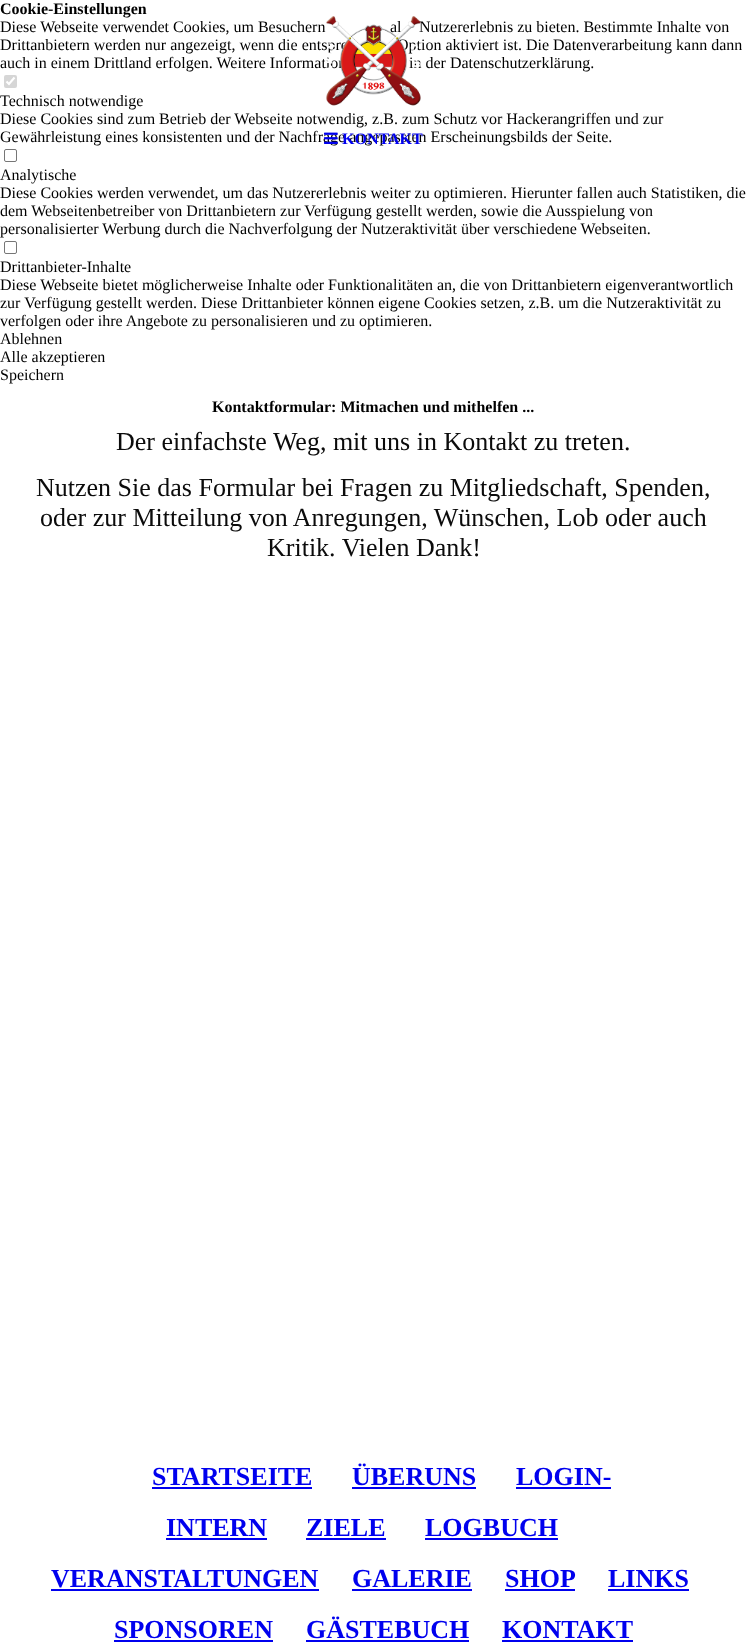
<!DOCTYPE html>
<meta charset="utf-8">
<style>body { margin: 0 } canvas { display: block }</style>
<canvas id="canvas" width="747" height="1647"></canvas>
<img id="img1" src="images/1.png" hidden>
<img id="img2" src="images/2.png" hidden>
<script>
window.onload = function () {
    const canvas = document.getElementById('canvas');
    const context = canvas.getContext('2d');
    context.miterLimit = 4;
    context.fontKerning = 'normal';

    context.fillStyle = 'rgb(255, 255, 255)';
    context.fillRect(0, 0, 747, 1647);
    context.fillStyle = 'rgb(214, 214, 214)';
    context.beginPath();
    context.roundRect(4, 75, 13, 13, 2);
    context.fill();
    context.beginPath();
    context.moveTo(6.5, 81.5);
    context.lineTo(9, 84);
    context.lineTo(14.5, 77.5);
    context.strokeStyle = 'rgb(255, 255, 255)';
    context.lineWidth = 2.1;
    context.stroke();
    context.beginPath();
    context.roundRect(4.5, 149.5, 12, 12, 1.5);
    context.strokeStyle = 'rgb(118, 118, 118)';
    context.lineWidth = 1;
    context.stroke();
    context.beginPath();
    context.roundRect(4.5, 241.5, 12, 12, 1.5);
    context.stroke();
    context.fillStyle = 'rgb(0, 0, 238)';
    context.fillRect(152, 1487, 160, 2);
    context.fillRect(352, 1487, 124, 2);
    context.fillRect(516, 1487, 95, 2);
    context.fillRect(166, 1538, 101, 2);
    context.fillRect(306, 1538, 80, 2);
    context.fillRect(425, 1538, 133, 2);
    context.fillRect(51, 1589, 268, 2);
    context.fillRect(352, 1589, 120, 2);
    context.fillRect(505, 1589, 70, 2);
    context.fillRect(608, 1589, 81, 2);
    context.fillRect(114, 1640, 159, 2);
    context.fillRect(306, 1640, 163, 2);
    context.fillRect(502, 1640, 131, 2);
    context.font = 'bold 16px Liberation Serif';
    context.fillStyle = 'rgb(0, 0, 0)';
    context.fillText('Cookie-Einstellungen', 0, 14);
    context.font = '16px Liberation Serif';
    context.fillText('Diese Webseite verwendet Cookies, um Besuchern', 0, 32);
    context.fillText('al', 390, 32);
    context.fillText('Nutzererlebnis zu bieten. Bestimmte Inhalte von', 419, 32);
    context.fillText('Drittanbietern werden nur angezeigt, wenn die entspre', 0, 50);
    context.fillText('Option aktiviert ist. Die Datenverarbeitung kann dann', 397, 50);
    context.fillText('auch in einem Drittland erfolgen. Weitere Information', 0, 68);
    context.fillText('in der Datenschutzerklärung.', 409, 68);
    context.fillText('Technisch notwendige', 0, 106);
    context.fillText('Diese Cookies sind zum Betrieb der Webseite notwendig, z.B. zum Schutz vor Hackerangriffen und zur', 0, 124);
    context.fillText('Gewährleistung eines konsistenten und der Nachfrage angepassten Erscheinungsbilds der Seite.', 0, 142);
    context.fillText('Analytische', 0, 180);
    context.fillText('Diese Cookies werden verwendet, um das Nutzererlebnis weiter zu optimieren. Hierunter fallen auch Statistiken, die', 0, 198);
    context.fillText('dem Webseitenbetreiber von Drittanbietern zur Verfügung gestellt werden, sowie die Ausspielung von', 0, 216);
    context.fillText('personalisierter Werbung durch die Nachverfolgung der Nutzeraktivität über verschiedene Webseiten.', 0, 234);
    context.fillText('Drittanbieter-Inhalte', 0, 272);
    context.fillText('Diese Webseite bietet möglicherweise Inhalte oder Funktionalitäten an, die von Drittanbietern eigenverantwortlich', 0, 290);
    context.fillText('zur Verfügung gestellt werden. Diese Drittanbieter können eigene Cookies setzen, z.B. um die Nutzeraktivität zu', 0, 308);
    context.fillText('verfolgen oder ihre Angebote zu personalisieren und zu optimieren.', 0, 326);
    context.fillText('Ablehnen', 0, 344);
    context.fillText('Alle akzeptieren', 0, 362);
    context.fillText('Speichern', 0, 380);
    context.drawImage(document.getElementById('img1'), 325, 16, 96, 90);
    context.drawImage(document.getElementById('img2'), 324, 132, 14, 12);
    context.font = 'bold 16px Liberation Serif';
    context.fillStyle = 'rgb(0, 0, 238)';
    context.fillText('KONTAKT', 342, 144);
    context.fillStyle = 'rgb(0, 0, 0)';
    context.fillText('Kontaktformular: Mitmachen und mithelfen ...', 212, 412);
    context.font = '26px Liberation Serif';
    context.fillStyle = 'rgb(11, 11, 11)';
    context.fillText('Der einfachste Weg, mit uns in Kontakt zu treten.', 116, 450);
    context.fillText('Nutzen Sie das Formular bei Fragen zu Mitgliedschaft, Spenden,', 36, 496);
    context.fillText('oder zur Mitteilung von Anregungen, Wünschen, Lob oder auch', 40, 526);
    context.fillText('Kritik. Vielen Dank!', 267, 556);
    context.font = 'bold 26px Liberation Serif';
    context.fillStyle = 'rgb(0, 0, 238)';
    context.fillText('STARTSEITE', 152, 1485);
    context.fillText('ÜBERUNS', 352, 1485);
    context.fillText('LOGIN-', 516, 1485);
    context.fillText('INTERN', 166, 1536);
    context.fillText('ZIELE', 306, 1536);
    context.fillText('LOGBUCH', 425, 1536);
    context.fillText('VERANSTALTUNGEN', 51, 1587);
    context.fillText('GALERIE', 352, 1587);
    context.fillText('SHOP', 505, 1587);
    context.fillText('LINKS', 608, 1587);
    context.fillText('SPONSOREN', 114, 1638);
    context.fillText('GÄSTEBUCH', 306, 1638);
    context.fillText('KONTAKT', 502, 1638);
};
</script>
